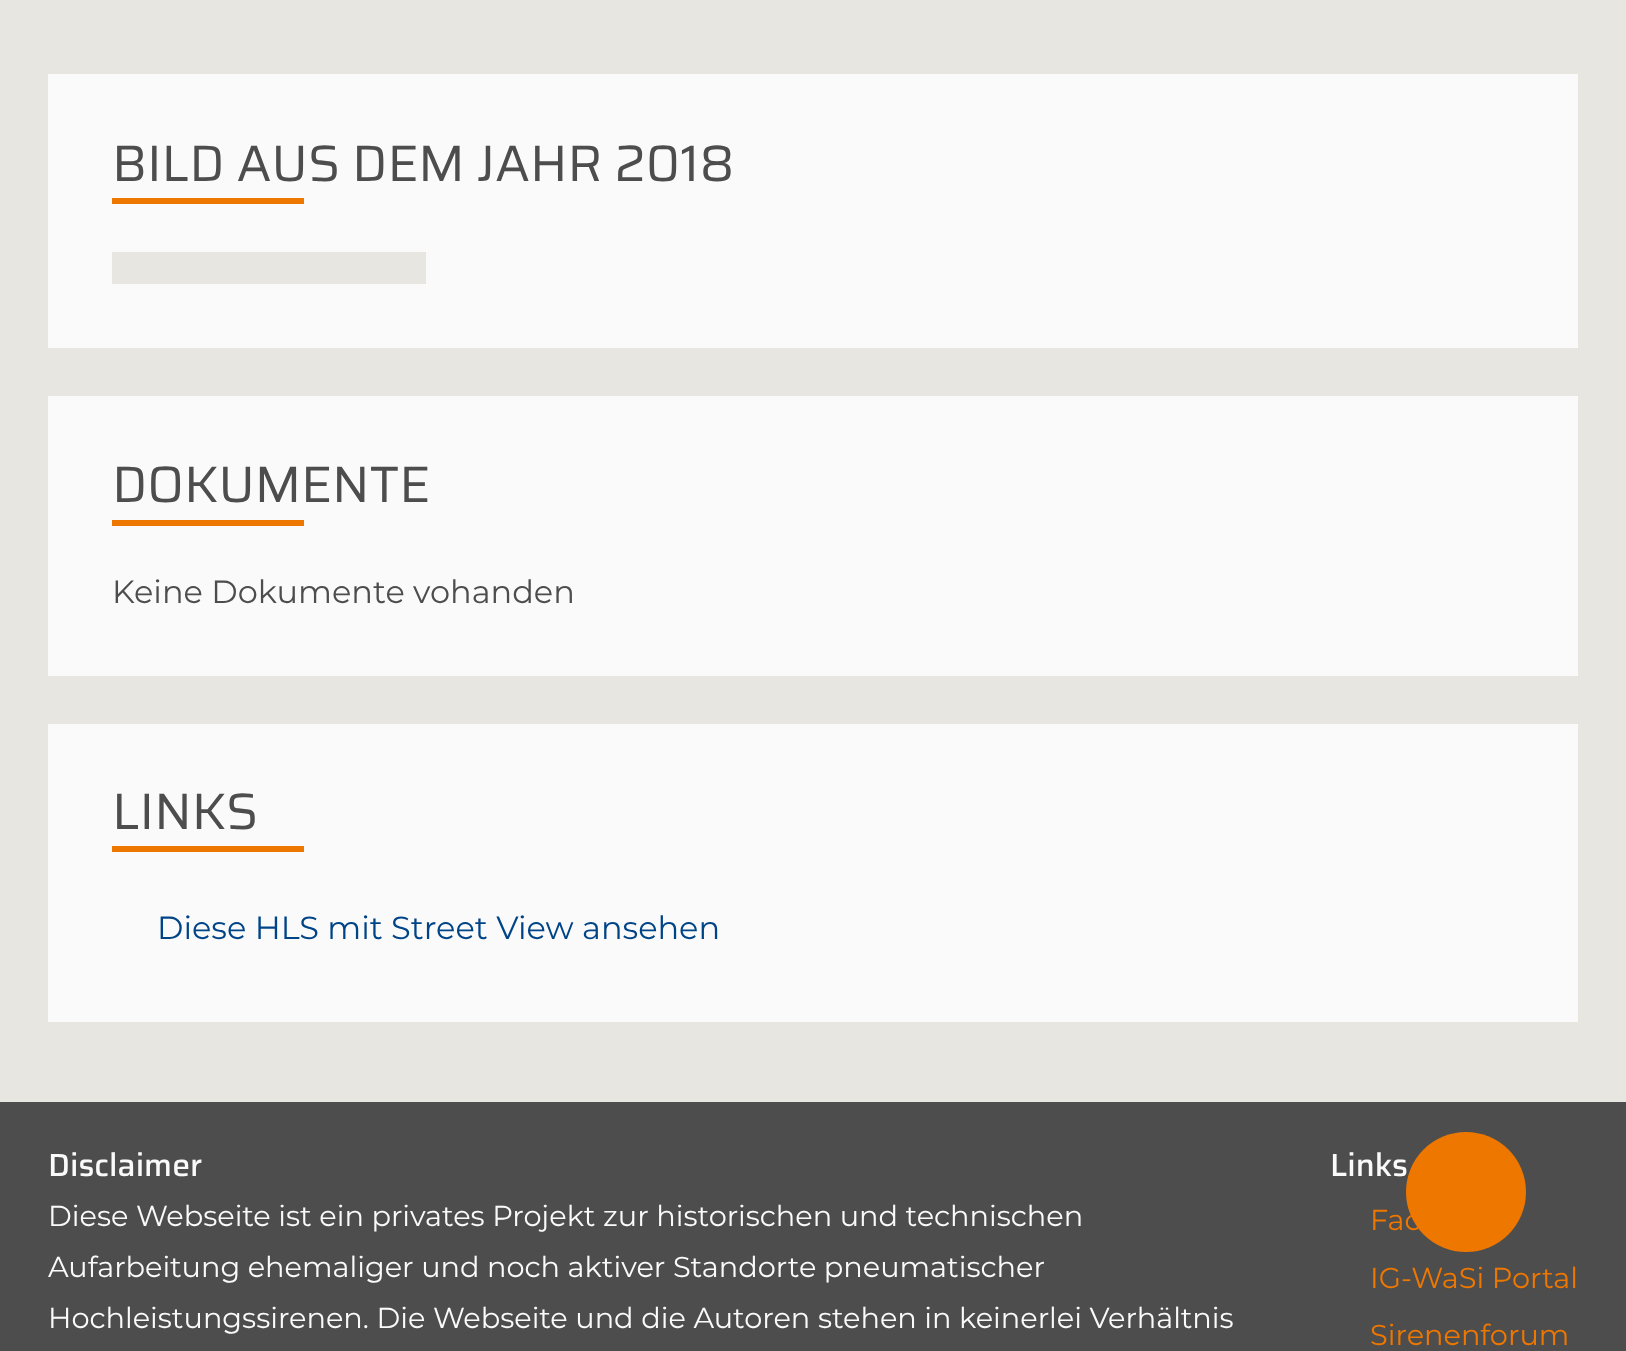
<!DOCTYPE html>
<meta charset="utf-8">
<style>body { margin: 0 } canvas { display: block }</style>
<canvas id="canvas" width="1626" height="1351"></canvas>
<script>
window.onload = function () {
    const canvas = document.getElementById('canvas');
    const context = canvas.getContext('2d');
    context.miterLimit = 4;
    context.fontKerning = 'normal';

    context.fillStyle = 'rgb(231, 230, 224)';
    context.fillRect(0, 0, 1626, 1351);
    context.fillStyle = 'rgb(250, 250, 250)';
    context.fillRect(48, 74, 1530, 274);
    context.fillStyle = 'rgb(238, 119, 0)';
    context.fillRect(112, 198, 192, 6);
    context.fillStyle = 'rgb(231, 230, 224)';
    context.fillRect(112, 252, 314, 32);
    context.fillStyle = 'rgb(250, 250, 250)';
    context.fillRect(48, 396, 1530, 280);
    context.fillStyle = 'rgb(238, 119, 0)';
    context.fillRect(112, 520, 192, 6);
    context.fillStyle = 'rgb(250, 250, 250)';
    context.fillRect(48, 724, 1530, 298);
    context.fillStyle = 'rgb(238, 119, 0)';
    context.fillRect(112, 846, 192, 6);
    context.fillStyle = 'rgb(77, 77, 77)';
    context.fillRect(0, 1102, 1626, 249);
    context.font = '51.25px Saira';
    context.fillText('BILD AUS DEM JAHR 2018', 112, 181);
    context.fillText('DOKUMENTE', 112, 502);
    context.font = '100 32px Montserrat';
    context.fillText('Keine Dokumente vohanden', 112, 603);
    context.font = '51.25px Saira';
    context.fillText('LINKS', 112, 829);
    context.font = '100 32px Montserrat';
    context.fillStyle = 'rgb(0, 68, 136)';
    context.fillText('Diese HLS mit Street View ansehen', 157, 939);
    context.font = '500 32px Saira';
    context.fillStyle = 'rgb(250, 250, 250)';
    context.fillText('Disclaimer', 48, 1176);
    context.font = '100 28.8px Montserrat';
    context.fillText('Diese Webseite ist ein privates Projekt zur historischen und technischen', 48, 1226);
    context.fillText('Aufarbeitung ehemaliger und noch aktiver Standorte pneumatischer', 48, 1277);
    context.fillText('Hochleistungssirenen. Die Webseite und die Autoren stehen in keinerlei Verhältnis', 48, 1328);
    context.font = '500 32px Saira';
    context.fillText('Links', 1330, 1176);
    context.fillStyle = 'rgb(238, 119, 0)';
    context.beginPath();
    context.arc(1466, 1192, 60, 0, 2 * Math.PI);
    context.fill();
    context.font = '100 28.8px Montserrat';
    context.fillText('Fac', 1370, 1230);
    context.fillText('IG-WaSi Portal', 1370, 1288);
    context.fillText('Sirenenforum', 1370, 1345);
};
</script>
